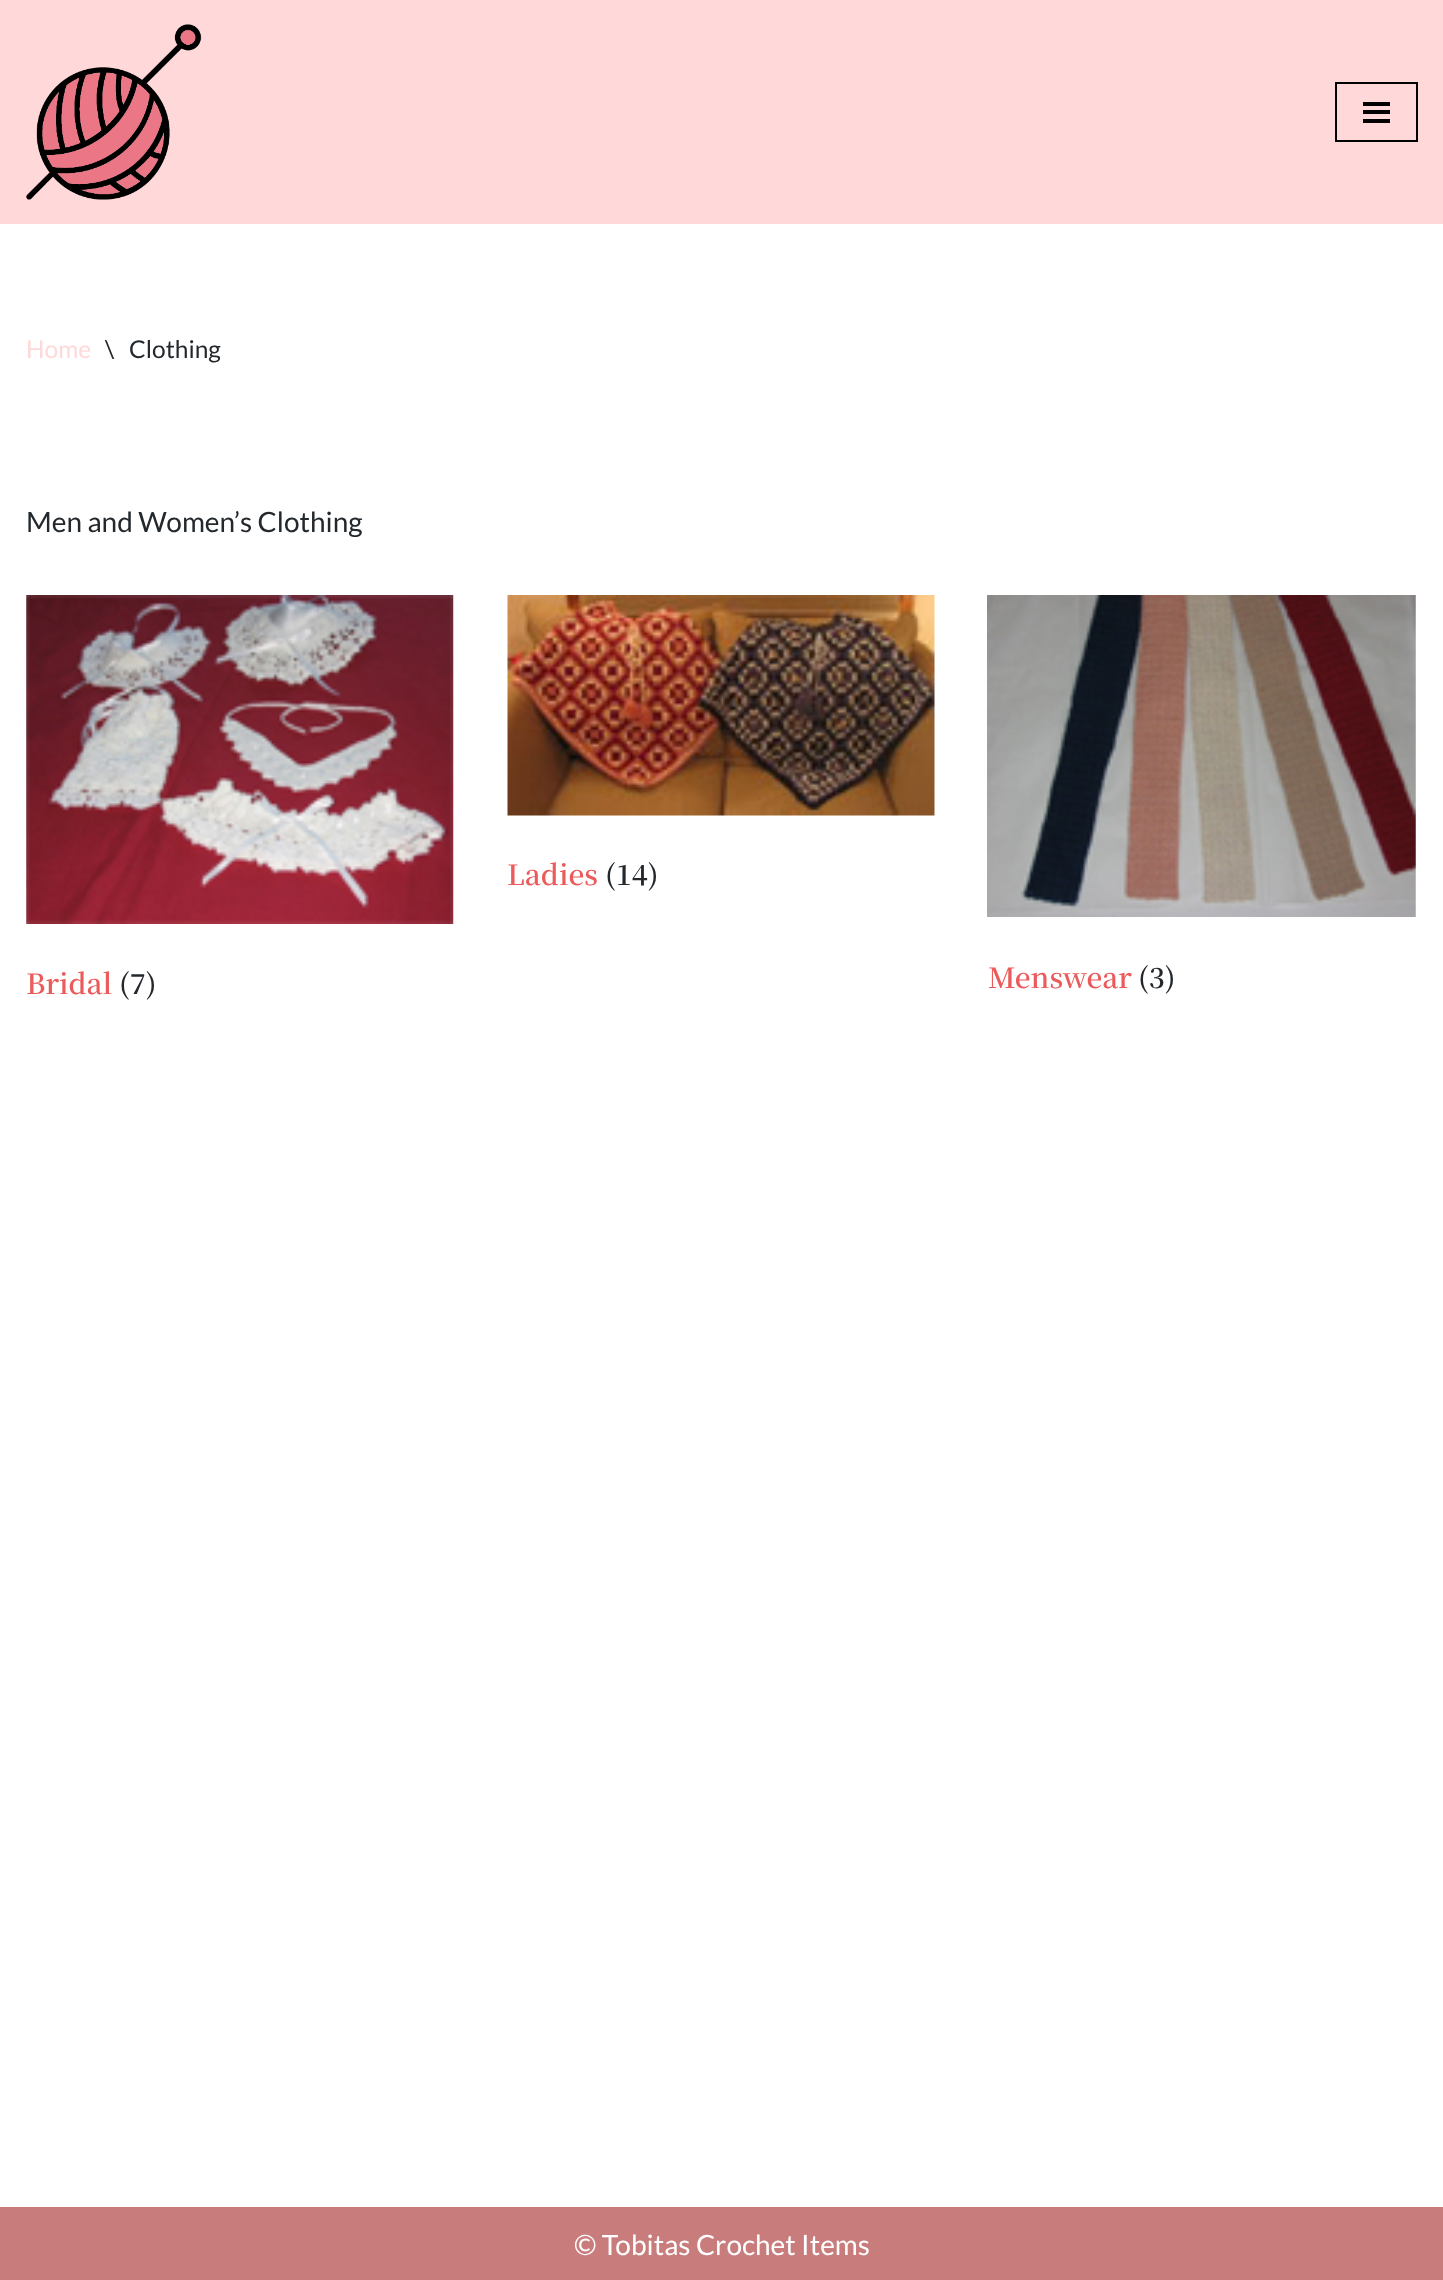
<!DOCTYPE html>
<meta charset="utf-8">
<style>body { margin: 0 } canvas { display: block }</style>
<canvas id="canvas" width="1443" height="2280"></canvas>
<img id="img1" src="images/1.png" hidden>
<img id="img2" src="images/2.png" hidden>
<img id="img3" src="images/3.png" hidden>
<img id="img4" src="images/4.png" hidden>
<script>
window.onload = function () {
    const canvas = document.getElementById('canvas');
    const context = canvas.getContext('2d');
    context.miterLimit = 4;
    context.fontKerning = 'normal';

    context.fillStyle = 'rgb(255, 255, 255)';
    context.fillRect(0, 0, 1443, 2280);
    context.fillStyle = 'rgb(255, 217, 217)';
    context.fillRect(0, 0, 1443, 224);
    context.drawImage(document.getElementById('img1'), 26, 24, 176, 176);
    context.strokeStyle = 'rgb(0, 0, 0)';
    context.lineWidth = 2;
    context.strokeRect(1336, 83, 81, 58);
    context.fillStyle = 'rgb(0, 0, 0)';
    context.fillRect(1363, 102, 27, 4);
    context.fillRect(1363, 110, 27, 4);
    context.fillRect(1363, 119, 27, 4);
    context.drawImage(document.getElementById('img2'), 507, 595, 428, 221);
    context.drawImage(document.getElementById('img3'), 26, 595, 428, 329);
    context.drawImage(document.getElementById('img4'), 987, 595, 429, 322);
    context.fillStyle = 'rgb(201, 124, 124)';
    context.fillRect(0, 2207, 1443, 73);
    context.font = '24.5px Lato';
    context.fillStyle = 'rgb(255, 217, 217)';
    context.fillText('Home', 26, 358);
    context.fillStyle = 'rgb(35, 40, 45)';
    context.fillText('\\', 105, 358);
    context.fillText('Clothing', 129, 358);
    context.font = '28px Lato';
    context.fillText('Men and Women’s Clothing', 26, 532);
    context.font = '600 28px Noto Serif SC';
    context.fillStyle = 'rgb(236, 91, 91)';
    context.fillText('Ladies', 507, 885);
    context.fillStyle = 'rgb(35, 40, 45)';
    context.fillText('(14)', 605, 885);
    context.fillStyle = 'rgb(236, 91, 91)';
    context.fillText('Bridal', 26, 994);
    context.fillStyle = 'rgb(35, 40, 45)';
    context.fillText('(7)', 119, 994);
    context.fillStyle = 'rgb(236, 91, 91)';
    context.fillText('Menswear', 988, 988);
    context.fillStyle = 'rgb(35, 40, 45)';
    context.fillText('(3)', 1138, 988);
    context.font = '28px Lato';
    context.fillStyle = 'rgb(255, 255, 255)';
    context.fillText('© Tobitas Crochet Items', 574, 2255);
};
</script>
